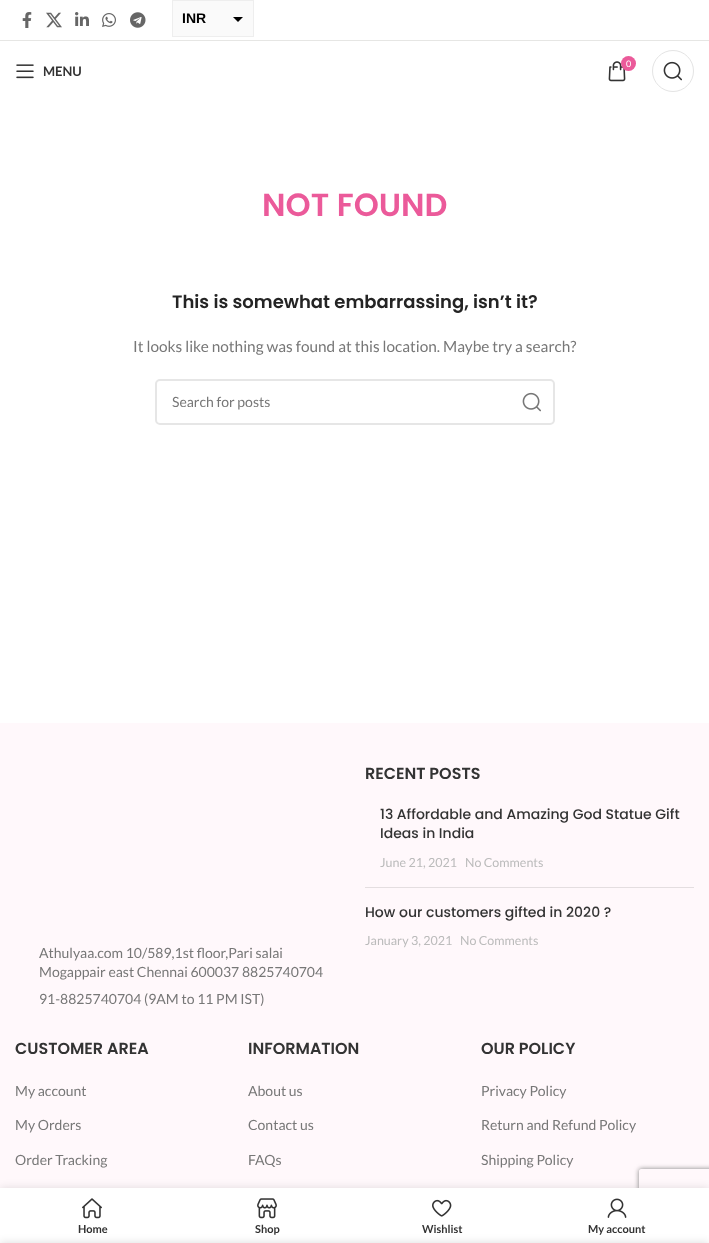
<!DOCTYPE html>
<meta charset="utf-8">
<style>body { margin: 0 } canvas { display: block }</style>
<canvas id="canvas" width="709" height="1243"></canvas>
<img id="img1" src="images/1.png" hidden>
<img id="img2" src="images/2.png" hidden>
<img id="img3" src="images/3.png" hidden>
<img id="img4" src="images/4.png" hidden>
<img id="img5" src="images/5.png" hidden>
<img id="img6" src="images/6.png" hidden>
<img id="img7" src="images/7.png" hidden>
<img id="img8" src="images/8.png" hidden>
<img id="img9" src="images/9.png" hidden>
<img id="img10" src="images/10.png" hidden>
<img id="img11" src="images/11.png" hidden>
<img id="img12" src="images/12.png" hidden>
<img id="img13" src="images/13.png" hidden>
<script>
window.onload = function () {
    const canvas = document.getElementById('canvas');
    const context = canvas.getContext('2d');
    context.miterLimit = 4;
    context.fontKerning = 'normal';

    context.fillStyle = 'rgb(255, 255, 255)';
    context.fillRect(0, 0, 709, 1243);
    context.fillStyle = 'rgb(230, 230, 228)';
    context.fillRect(0, 40, 709, 1);
    context.drawImage(document.getElementById('img1'), 22, 12, 10, 16);
    context.drawImage(document.getElementById('img2'), 46, 12, 16, 16);
    context.drawImage(document.getElementById('img3'), 75, 12, 14, 14);
    context.drawImage(document.getElementById('img4'), 102, 13, 14, 14);
    context.drawImage(document.getElementById('img5'), 130, 12, 16, 16);
    context.fillStyle = 'rgb(238, 238, 238)';
    context.fillRect(172, 0, 82, 37);
    context.fillStyle = 'rgb(250, 250, 250)';
    context.fillRect(173, 1, 80, 35);
    context.fillStyle = 'rgb(0, 0, 0)';
    context.beginPath();
    context.moveTo(233, 17);
    context.lineTo(243, 17);
    context.lineTo(238, 22);
    context.closePath();
    context.fill();
    context.drawImage(document.getElementById('img6'), 608, 61, 18, 21);
    context.fillStyle = 'rgb(235, 90, 154)';
    context.beginPath();
    context.arc(628.5, 63.5, 7.5, 0, 2 * Math.PI);
    context.fill();
    context.beginPath();
    context.arc(673, 71, 20.5, 0, 2 * Math.PI);
    context.strokeStyle = 'rgb(228, 228, 228)';
    context.stroke();
    context.drawImage(document.getElementById('img7'), 663, 61, 19, 20);
    context.drawImage(document.getElementById('img8'), 16, 64, 18, 15);
    context.beginPath();
    context.roundRect(156, 380, 398, 44, 4);
    context.strokeStyle = 'rgb(230, 230, 230)';
    context.lineWidth = 2;
    context.stroke();
    context.drawImage(document.getElementById('img9'), 522, 392, 19, 20);
    context.fillStyle = 'rgb(255, 248, 251)';
    context.fillRect(0, 723, 709, 465);
    context.fillStyle = 'rgb(228, 222, 224)';
    context.fillRect(365, 887, 329, 1);
    context.fillStyle = 'rgba(0, 0, 0, 0.12)';
    context.filter = 'blur(4.5px)';
    context.beginPath();
    context.rect(0, 1188, 709, 55);
    context.fill();
    context.filter = 'none';
    context.save();
    context.beginPath();
    context.moveTo(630, 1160);
    context.lineTo(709, 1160);
    context.lineTo(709, 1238);
    context.lineTo(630, 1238);
    context.closePath();
    context.moveTo(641, 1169);
    context.lineTo(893, 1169);
    context.bezierCurveTo(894, 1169, 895, 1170, 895, 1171);
    context.lineTo(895, 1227);
    context.bezierCurveTo(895, 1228, 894, 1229, 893, 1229);
    context.lineTo(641, 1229);
    context.bezierCurveTo(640, 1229, 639, 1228, 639, 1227);
    context.lineTo(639, 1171);
    context.bezierCurveTo(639, 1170, 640, 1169, 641, 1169);
    context.closePath();
    context.clip('evenodd');
    context.fillStyle = 'rgb(128, 128, 128)';
    context.filter = 'blur(2.5px)';
    context.beginPath();
    context.roundRect(639, 1169, 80, 60, 2);
    context.fill();
    context.filter = 'none';
    context.restore();
    context.fillStyle = 'rgb(255, 255, 255)';
    context.fillRect(0, 1188, 709, 55);
    context.drawImage(document.getElementById('img10'), 82, 1198, 20, 21);
    context.drawImage(document.getElementById('img11'), 257, 1198, 20, 21);
    context.drawImage(document.getElementById('img12'), 432, 1199, 20, 18);
    context.drawImage(document.getElementById('img13'), 607, 1198, 20, 20);
    context.fillStyle = 'rgba(0, 0, 0, 0.14)';
    context.filter = 'blur(4.5px)';
    context.beginPath();
    context.rect(0, 1243, 709, 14);
    context.fill();
    context.filter = 'none';
    context.font = 'bold 14px Liberation Sans';
    context.fillStyle = 'rgb(0, 0, 0)';
    context.fillText('INR', 182, 23);
    context.font = '9px Lato';
    context.fillStyle = 'rgb(255, 255, 255)';
    context.fillText('0', 626, 67);
    context.font = 'bold 13px Lato';
    context.fillStyle = 'rgb(51, 51, 51)';
    context.fillText('MENU', 43, 76);
    context.font = '600 32px Poppins';
    context.fillStyle = 'rgb(235, 90, 154)';
    context.fillText('NOT FOUND', 262, 216);
    context.font = '600 18px Poppins';
    context.fillStyle = 'rgb(36, 36, 36)';
    context.fillText('This is somewhat embarrassing, isn’t it?', 172, 308);
    context.font = '15.4px Lato';
    context.fillStyle = 'rgb(119, 119, 119)';
    context.fillText('It looks like nothing was found at this location. Maybe try a search?', 133, 352);
    context.font = '14px Lato';
    context.fillText('Search for posts', 172, 407);
    context.font = '600 16px Poppins';
    context.fillStyle = 'rgb(51, 51, 51)';
    context.fillText('RECENT POSTS', 365, 779);
    context.font = '500 14px Poppins';
    context.fillText('13 Affordable and Amazing God Statue Gift', 380, 819);
    context.fillText('Ideas in India', 380, 838);
    context.font = '12.5px Lato';
    context.fillStyle = 'rgb(187, 187, 187)';
    context.fillText('June 21, 2021', 380, 867);
    context.fillText('No Comments', 465, 867);
    context.font = '500 14px Poppins';
    context.fillStyle = 'rgb(51, 51, 51)';
    context.fillText('How our customers gifted in 2020 ?', 365, 917);
    context.font = '12.5px Lato';
    context.fillStyle = 'rgb(187, 187, 187)';
    context.fillText('January 3, 2021', 365, 945);
    context.fillText('No Comments', 460, 945);
    context.font = '14px Lato';
    context.fillStyle = 'rgb(119, 119, 119)';
    context.fillText('Athulyaa.com 10/589,1st floor,Pari salai', 39, 958);
    context.fillText('Mogappair east Chennai 600037 8825740704', 39, 977);
    context.fillText('91-8825740704 (9AM to 11 PM IST)', 39, 1004);
    context.font = '600 16px Poppins';
    context.fillStyle = 'rgb(51, 51, 51)';
    context.fillText('CUSTOMER AREA', 15, 1054);
    context.font = '14px Lato';
    context.fillStyle = 'rgb(119, 119, 119)';
    context.fillText('My account', 15, 1096);
    context.fillText('My Orders', 15, 1130);
    context.fillText('Order Tracking', 15, 1165);
    context.font = '600 16px Poppins';
    context.fillStyle = 'rgb(51, 51, 51)';
    context.fillText('INFORMATION', 248, 1054);
    context.font = '14px Lato';
    context.fillStyle = 'rgb(119, 119, 119)';
    context.fillText('About us', 248, 1096);
    context.fillText('Contact us', 248, 1130);
    context.fillText('FAQs', 248, 1165);
    context.font = '600 16px Poppins';
    context.fillStyle = 'rgb(51, 51, 51)';
    context.fillText('OUR POLICY', 481, 1054);
    context.font = '14px Lato';
    context.fillStyle = 'rgb(119, 119, 119)';
    context.fillText('Privacy Policy', 481, 1096);
    context.fillText('Return and Refund Policy', 481, 1130);
    context.fillText('Shipping Policy', 481, 1165);
    context.font = 'bold 11px Lato';
    context.fillStyle = 'rgb(51, 51, 51)';
    context.fillText('Home', 78, 1233);
    context.fillText('Shop', 255, 1233);
    context.fillText('Wishlist', 422, 1233);
    context.fillText('My account', 588, 1233);
};
</script>
